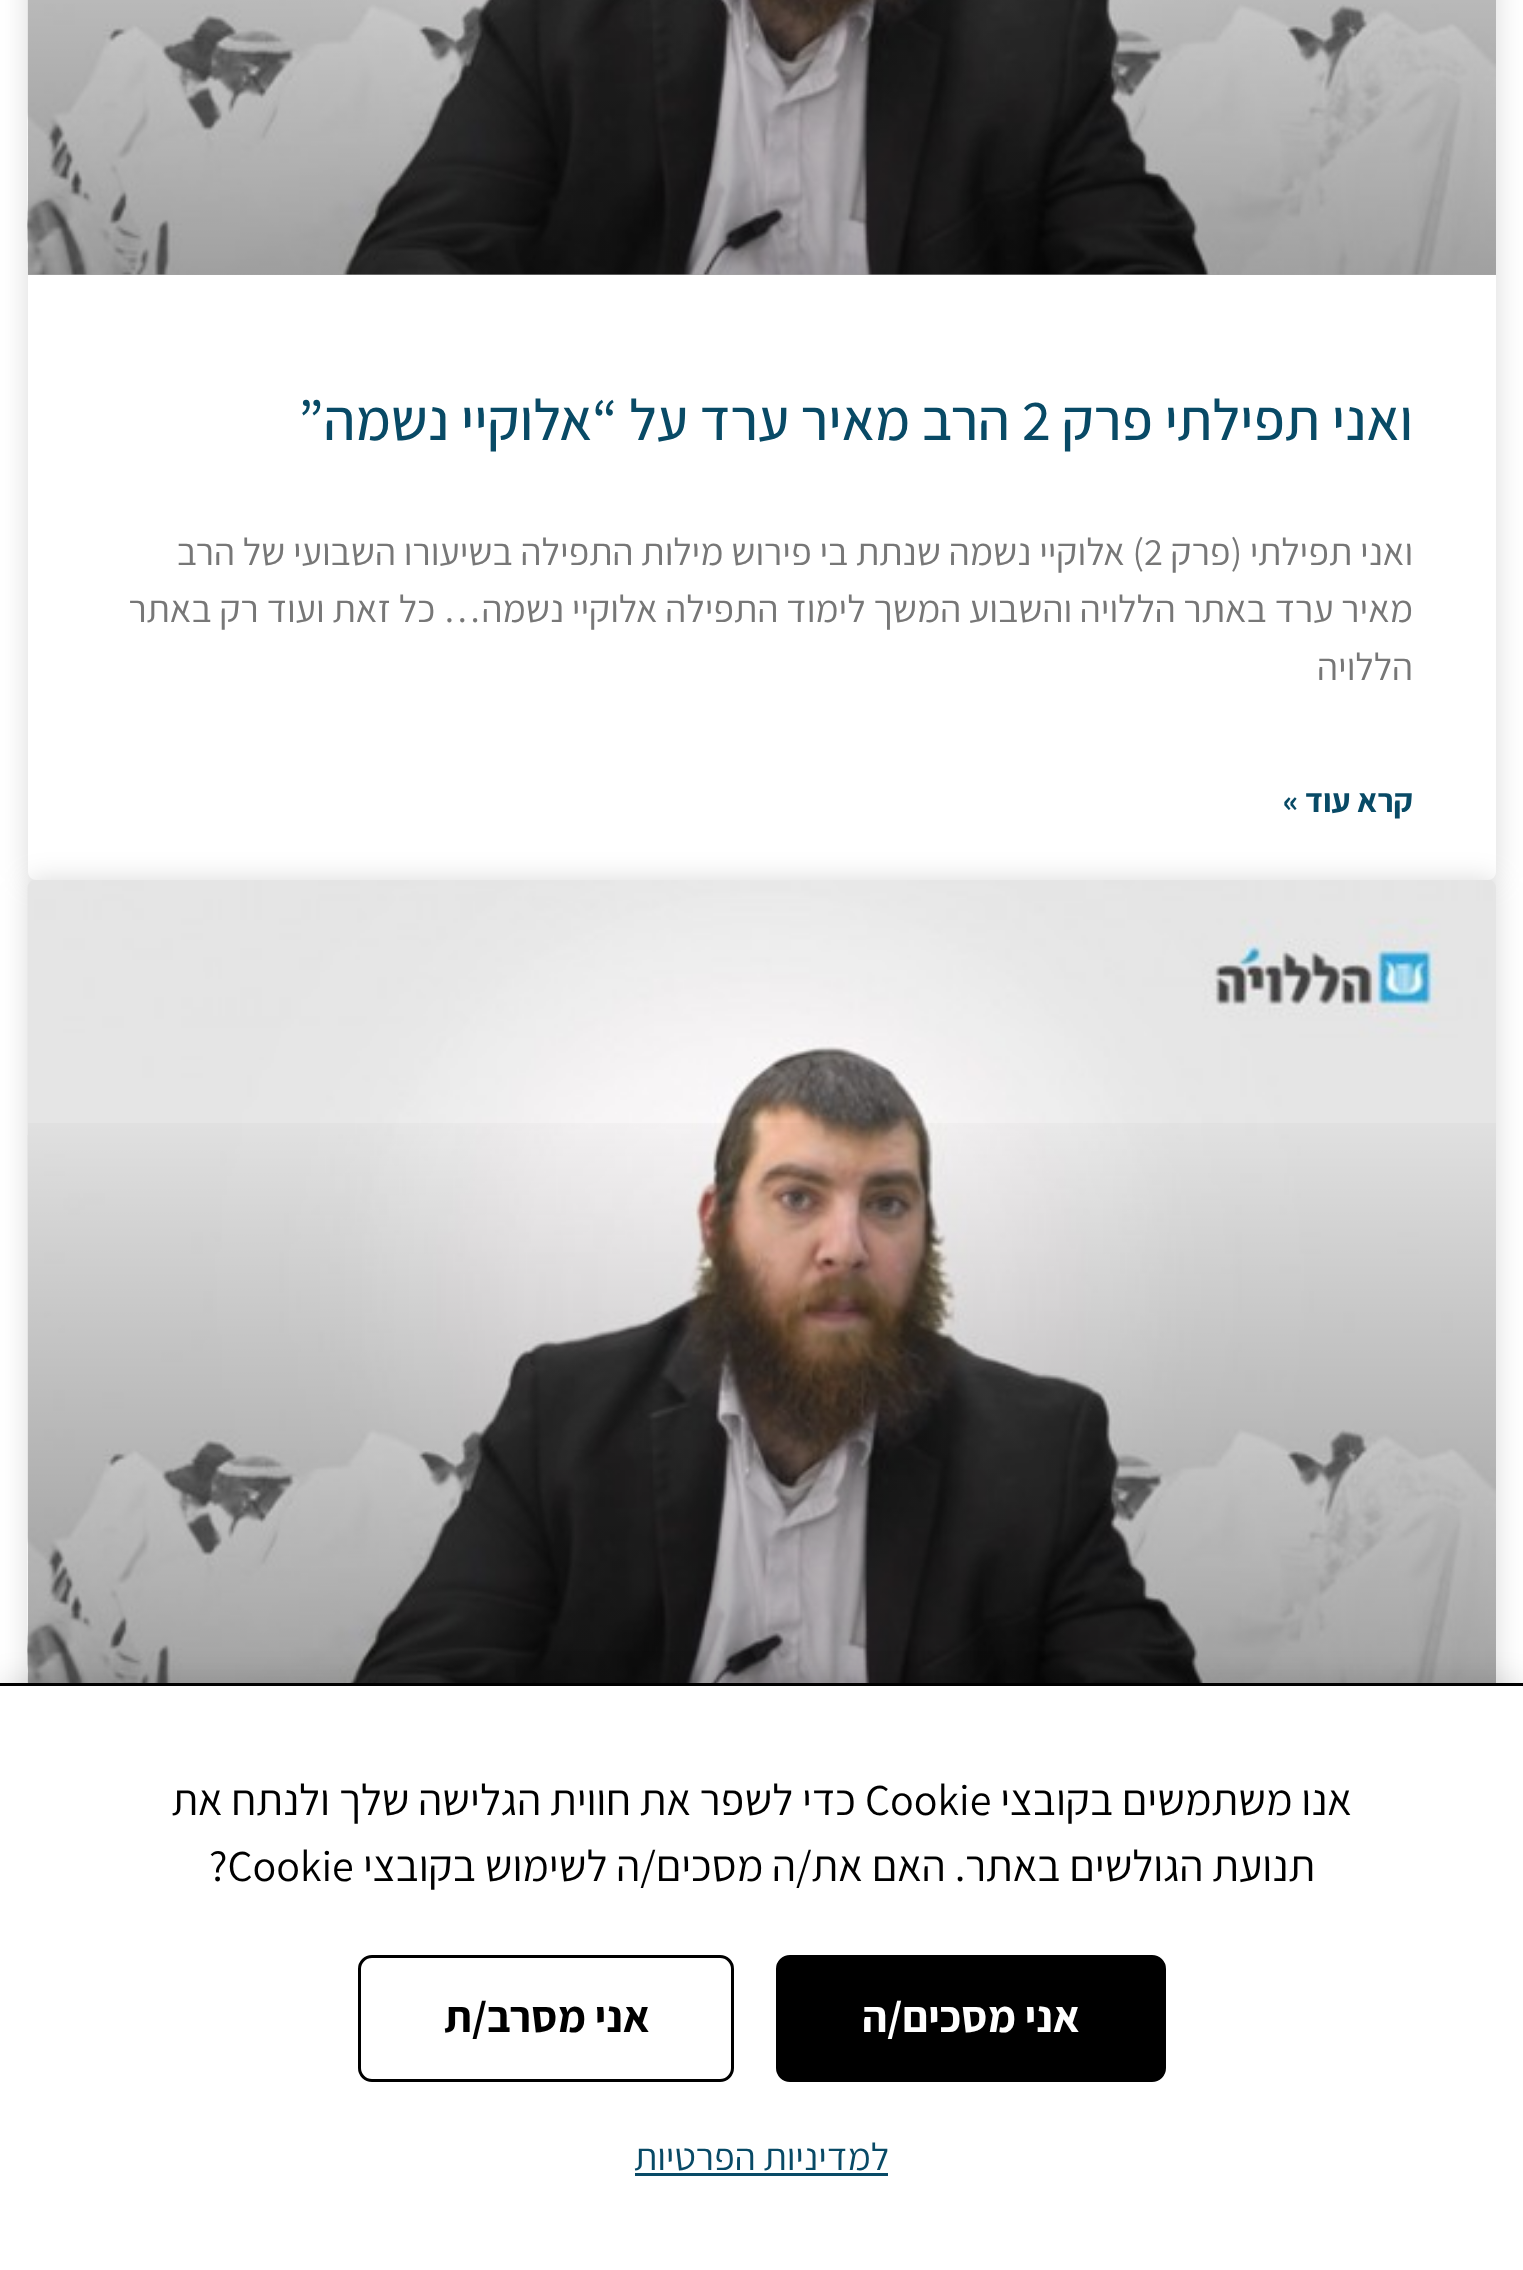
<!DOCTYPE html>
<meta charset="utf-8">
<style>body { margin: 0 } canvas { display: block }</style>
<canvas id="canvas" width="1523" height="2270"></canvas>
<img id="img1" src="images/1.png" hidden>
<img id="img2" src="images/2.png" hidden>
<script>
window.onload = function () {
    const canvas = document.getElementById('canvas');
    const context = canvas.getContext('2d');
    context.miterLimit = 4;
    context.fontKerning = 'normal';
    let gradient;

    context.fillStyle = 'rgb(255, 255, 255)';
    context.fillRect(0, 0, 1523, 2270);
    context.fillStyle = 'rgba(0, 0, 0, 0.15)';
    context.filter = 'blur(14px)';
    context.beginPath();
    context.roundRect(28, -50, 1468, 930, 8);
    context.fill();
    context.filter = 'none';
    context.fillStyle = 'rgb(255, 255, 255)';
    context.beginPath();
    context.roundRect(28, -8, 1468, 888, 8);
    context.fill();
    context.drawImage(document.getElementById('img1'), 27, 0, 1469, 275);
    gradient = context.createLinearGradient(762, 275, 762, -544);
    gradient.addColorStop(0, 'rgba(0, 0, 0, 0.35)');
    gradient.addColorStop(0.75, 'rgba(0, 0, 0, 0)');
    context.fillStyle = gradient;
    context.fillRect(28, 0, 1468, 275);
    context.fillStyle = 'rgba(0, 0, 0, 0.15)';
    context.filter = 'blur(14px)';
    context.beginPath();
    context.roundRect(28, 880, 1468, 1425, 8);
    context.fill();
    context.filter = 'none';
    context.drawImage(document.getElementById('img2'), 27, 880, 1469, 803);
    gradient = context.createLinearGradient(762, 1700, 762, 880);
    gradient.addColorStop(0, 'rgba(0, 0, 0, 0.35)');
    gradient.addColorStop(0.75, 'rgba(0, 0, 0, 0)');
    context.fillStyle = gradient;
    context.fillRect(28, 1123, 1468, 560);
    context.fillStyle = 'rgba(0, 0, 0, 0.1)';
    context.filter = 'blur(14px)';
    context.beginPath();
    context.rect(0, 1678, 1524, 588);
    context.fill();
    context.filter = 'none';
    context.fillStyle = 'rgb(255, 255, 255)';
    context.fillRect(0, 1686, 1523, 584);
    context.fillStyle = 'rgb(0, 0, 0)';
    context.fillRect(0, 1683, 1523, 3);
    context.beginPath();
    context.roundRect(777.5, 1956.5, 387, 124, 12.5);
    context.fill();
    context.strokeStyle = 'rgb(0, 0, 0)';
    context.lineWidth = 3;
    context.stroke();
    context.beginPath();
    context.roundRect(359.5, 1956.5, 373, 124, 12.5);
    context.stroke();
    context.fillStyle = 'rgb(8, 74, 102)';
    context.fillRect(635, 2173, 253, 3);
    context.direction = 'rtl';
    context.font = '500 57.75px Assistant';
    context.fillText('ואני תפילתי פרק', 1413, 440);
    context.direction = 'ltr';
    context.fillText('2', 1022, 440);
    context.direction = 'rtl';
    context.fillText('הרב מאיר ערד על “אלוקיי נשמה”', 1010, 440);
    context.font = '38.5px Assistant';
    context.fillStyle = 'rgb(119, 119, 119)';
    context.fillText('ואני תפילתי (פרק', 1413, 565);
    context.direction = 'ltr';
    context.fillText('2', 1144, 565);
    context.direction = 'rtl';
    context.fillText(') אלוקיי נשמה שנתת בי פירוש מילות התפילה בשיעורו השבועי של הרב', 1144, 565);
    context.fillText('מאיר ערד באתר הללויה והשבוע המשך לימוד התפילה אלוקיי נשמה… כל זאת ועוד רק באתר', 1413, 622);
    context.fillText('הללויה', 1413, 680);
    context.font = 'bold 33px Assistant';
    context.fillStyle = 'rgb(8, 74, 102)';
    context.fillText('קרא עוד »', 1413, 812);
    context.font = '44px Assistant';
    context.fillStyle = 'rgb(0, 0, 0)';
    context.fillText('אנו משתמשים בקובצי', 1352, 1815);
    context.direction = 'ltr';
    context.fillText('Cookie', 865, 1815);
    context.direction = 'rtl';
    context.fillText('כדי לשפר את חווית הגלישה שלך ולנתח את', 856, 1815);
    context.fillText('תנועת הגולשים באתר. האם את/ה מסכים/ה לשימוש בקובצי', 1315, 1881);
    context.direction = 'ltr';
    context.fillText('?Cookie', 209, 1881);
    context.direction = 'rtl';
    context.font = 'bold 44px Assistant';
    context.fillStyle = 'rgb(255, 255, 255)';
    context.fillText('אני מסכים/ה', 1080, 2032);
    context.fillStyle = 'rgb(0, 0, 0)';
    context.fillText('אני מסרב/ת', 650, 2032);
    context.font = '38.5px Assistant';
    context.fillStyle = 'rgb(8, 74, 102)';
    context.fillText('למדיניות הפרטיות', 889, 2170);
};
</script>
